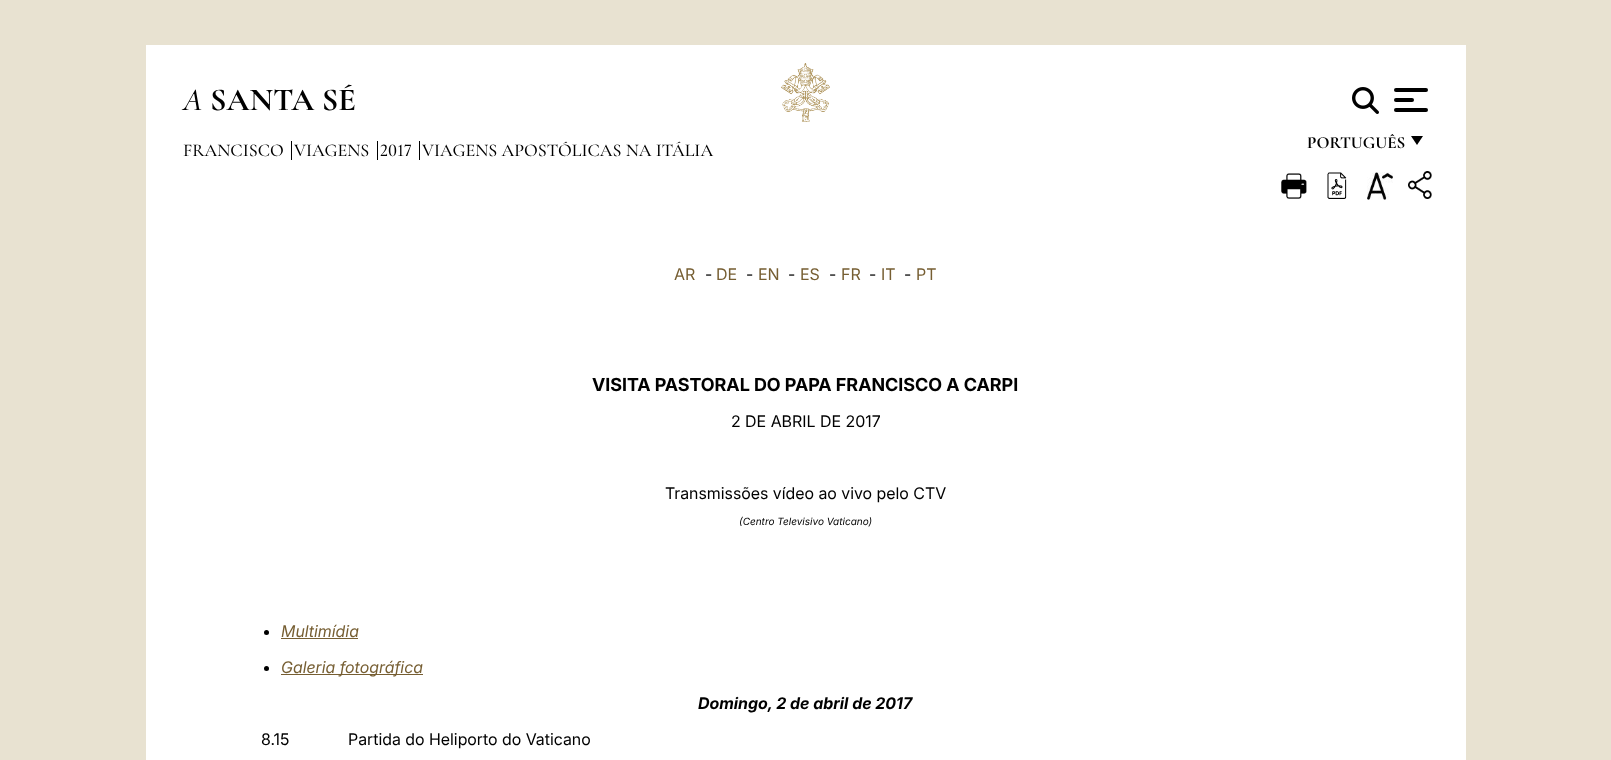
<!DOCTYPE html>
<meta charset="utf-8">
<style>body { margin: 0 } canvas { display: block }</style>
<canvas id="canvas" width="1611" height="760"></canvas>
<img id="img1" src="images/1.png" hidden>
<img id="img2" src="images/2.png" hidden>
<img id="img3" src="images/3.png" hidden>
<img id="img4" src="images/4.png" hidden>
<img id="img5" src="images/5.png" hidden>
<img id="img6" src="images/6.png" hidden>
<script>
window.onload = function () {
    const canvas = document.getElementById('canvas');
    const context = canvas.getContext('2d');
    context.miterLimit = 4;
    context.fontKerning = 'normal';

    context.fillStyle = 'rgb(232, 226, 209)';
    context.fillRect(0, 0, 1611, 760);
    context.fillStyle = 'rgb(255, 255, 255)';
    context.fillRect(146, 45, 1320, 715);
    context.drawImage(document.getElementById('img1'), 781, 63, 49, 59);
    context.drawImage(document.getElementById('img2'), 1352, 87, 27, 27);
    context.fillStyle = 'rgb(0, 0, 0)';
    context.beginPath();
    context.roundRect(1394, 88, 34, 4, 2);
    context.fill();
    context.beginPath();
    context.roundRect(1394, 98, 20, 4, 2);
    context.fill();
    context.beginPath();
    context.roundRect(1394, 108, 34, 4, 2);
    context.fill();
    context.beginPath();
    context.moveTo(1411, 136);
    context.lineTo(1423, 136);
    context.lineTo(1417, 145);
    context.closePath();
    context.fill();
    context.fillRect(291, 141, 1, 19);
    context.fillRect(377, 141, 1, 19);
    context.fillRect(419, 141, 1, 19);
    context.drawImage(document.getElementById('img3'), 1281, 173, 26, 26);
    context.drawImage(document.getElementById('img4'), 1327, 172, 20, 27);
    context.drawImage(document.getElementById('img5'), 1367, 172, 26, 28);
    context.drawImage(document.getElementById('img6'), 1408, 171, 24, 28);
    context.beginPath();
    context.arc(266.5, 632.5, 2.5, 0, 2 * Math.PI);
    context.fill();
    context.fillStyle = 'rgb(118, 94, 50)';
    context.fillRect(281, 638, 77, 1);
    context.fillStyle = 'rgb(0, 0, 0)';
    context.beginPath();
    context.arc(266.5, 668.5, 2.5, 0, 2 * Math.PI);
    context.fill();
    context.fillStyle = 'rgb(118, 94, 50)';
    context.fillRect(281, 674, 142, 1);
    context.font = 'italic 500 32px Cormorant Garamond';
    context.fillStyle = 'rgb(0, 0, 0)';
    context.fillText('A', 183, 110);
    context.font = 'bold 32px Cormorant Garamond';
    context.fillText('SANTA SÉ', 210, 110);
    context.font = 'bold 17px Cormorant Garamond';
    context.fillText('PORTUGUÊS', 1307, 148);
    context.font = '500 18px Cormorant Garamond';
    context.fillText('FRANCISCO', 183, 156);
    context.fillText('VIAGENS', 294, 156);
    context.font = '500 18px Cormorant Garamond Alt';
    context.fillText('2017', 380, 156);
    context.font = '500 18px Cormorant Garamond';
    context.fillText('VIAGENS APOSTÓLICAS NA ITÁLIA', 422, 156);
    context.font = '16px Inter';
    context.fillStyle = 'rgb(118, 94, 50)';
    context.fillText('AR', 674, 280);
    context.font = '16px "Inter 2"';
    context.fillStyle = 'rgb(0, 0, 0)';
    context.fillText('-', 705, 280);
    context.font = '16px Inter';
    context.fillStyle = 'rgb(118, 94, 50)';
    context.fillText('DE', 716, 280);
    context.font = '16px "Inter 2"';
    context.fillStyle = 'rgb(0, 0, 0)';
    context.fillText('-', 746, 280);
    context.font = '16px Inter';
    context.fillStyle = 'rgb(118, 94, 50)';
    context.fillText('EN', 758, 280);
    context.font = '16px "Inter 2"';
    context.fillStyle = 'rgb(0, 0, 0)';
    context.fillText('-', 788, 280);
    context.font = '16px Inter';
    context.fillStyle = 'rgb(118, 94, 50)';
    context.fillText('ES', 800, 280);
    context.font = '16px "Inter 2"';
    context.fillStyle = 'rgb(0, 0, 0)';
    context.fillText('-', 829, 280);
    context.font = '16px Inter';
    context.fillStyle = 'rgb(118, 94, 50)';
    context.fillText('FR', 841, 280);
    context.font = '16px "Inter 2"';
    context.fillStyle = 'rgb(0, 0, 0)';
    context.fillText('-', 869, 280);
    context.fillStyle = 'rgb(118, 94, 50)';
    context.fillText('IT', 881, 280);
    context.fillStyle = 'rgb(0, 0, 0)';
    context.fillText('-', 904, 280);
    context.fillStyle = 'rgb(118, 94, 50)';
    context.fillText('PT', 916, 280);
    context.font = 'bold 18px Inter';
    context.fillStyle = 'rgb(0, 0, 0)';
    context.fillText('VISITA PASTORAL DO PAPA FRANCISCO A CARPI', 592, 391);
    context.font = '16px "Inter 2"';
    context.fillText('2 DE ABRIL DE 2017', 731, 427);
    context.fillText('Transmissões vídeo ao vivo pelo CTV', 665, 499);
    context.font = 'italic 10px Inter';
    context.fillText('(Centro Televisivo Vaticano)', 739, 525);
    context.font = 'italic 16px "Inter 2"';
    context.fillStyle = 'rgb(118, 94, 50)';
    context.fillText('Multimídia', 281, 637);
    context.fillText('Galeria fotográfica', 281, 673);
    context.font = 'italic bold 16px Inter';
    context.fillStyle = 'rgb(0, 0, 0)';
    context.fillText('Domingo, 2 de abril de 2017', 698, 709);
    context.font = '16px "Inter 2"';
    context.fillText('8.15', 261, 745);
    context.fillText('Partida do Heliporto do Vaticano', 348, 745);
};
</script>
